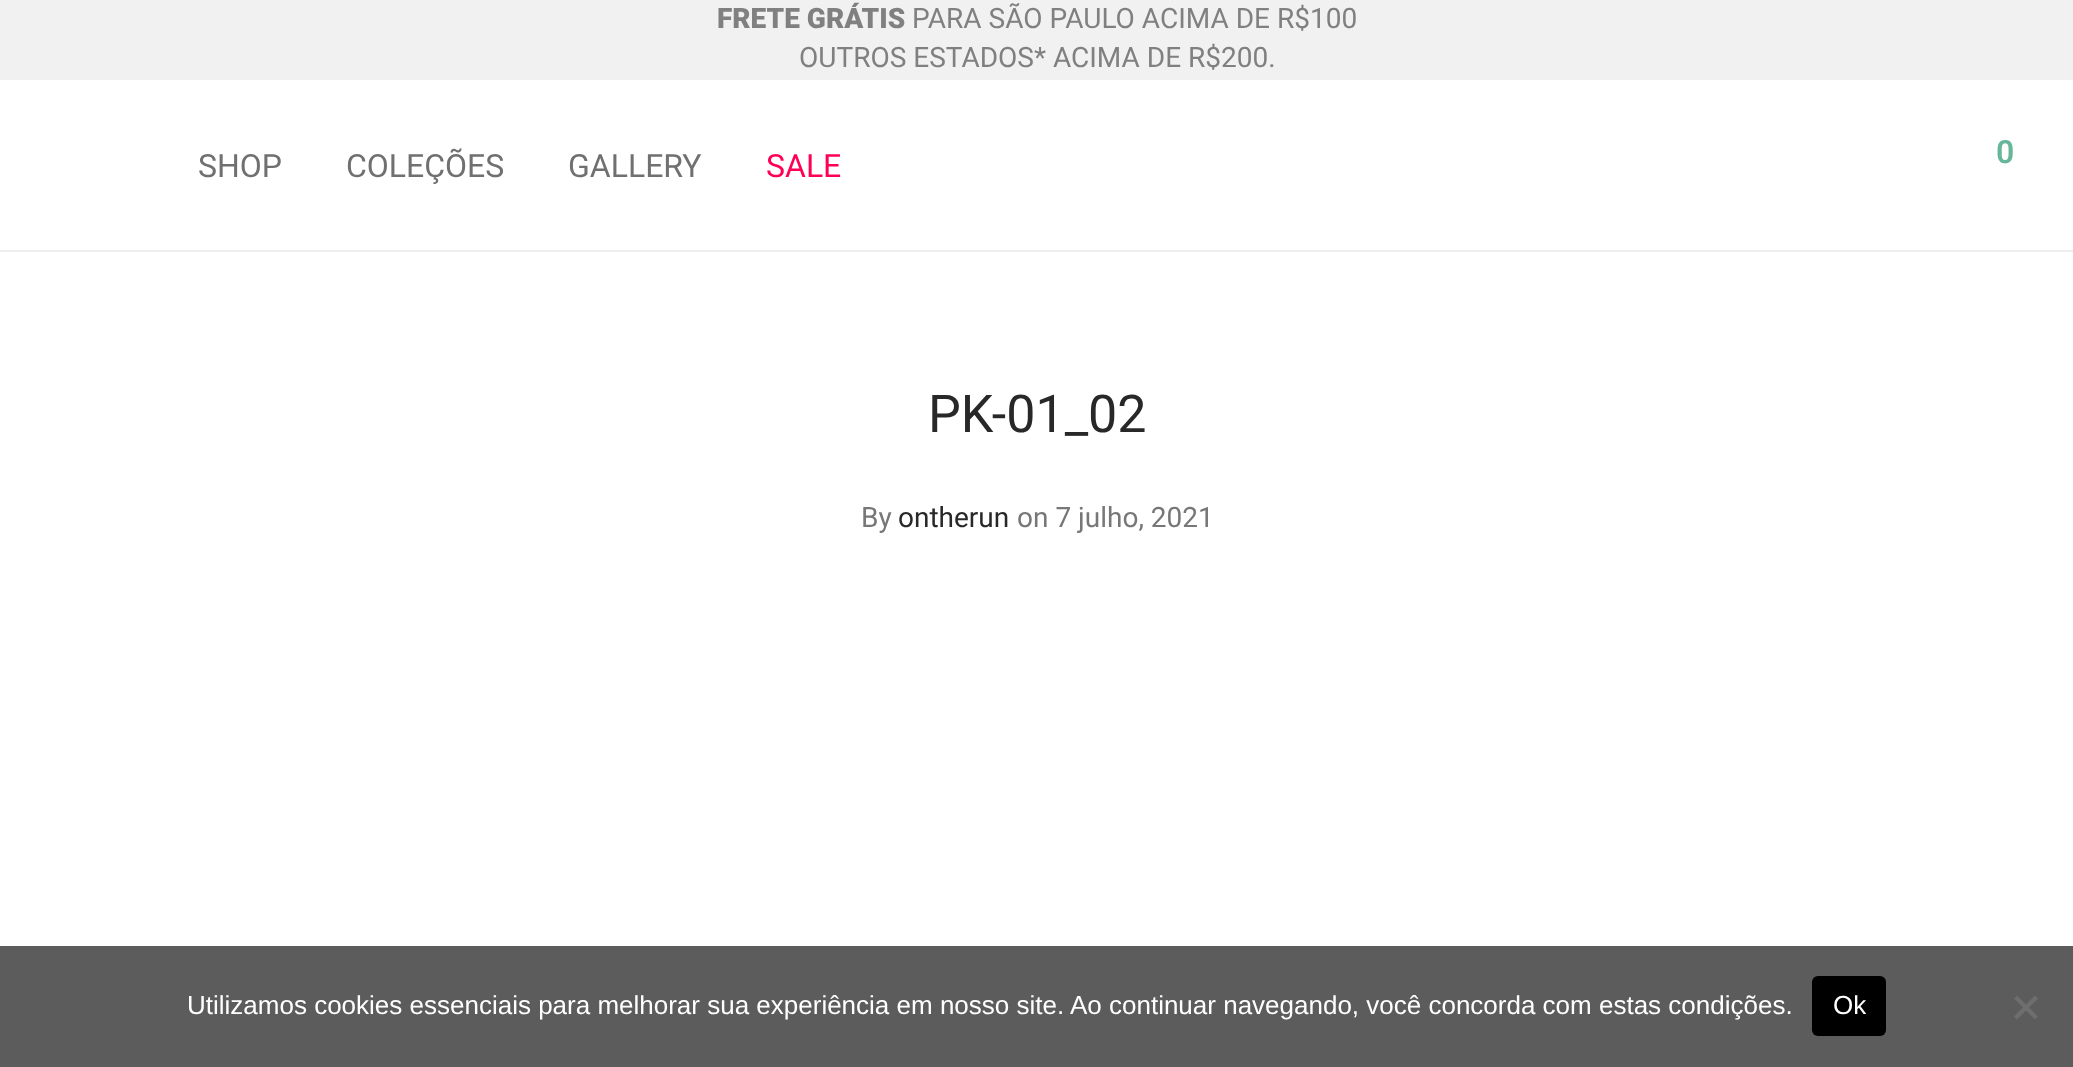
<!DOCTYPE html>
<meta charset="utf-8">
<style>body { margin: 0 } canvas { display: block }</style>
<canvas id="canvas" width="2073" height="1067"></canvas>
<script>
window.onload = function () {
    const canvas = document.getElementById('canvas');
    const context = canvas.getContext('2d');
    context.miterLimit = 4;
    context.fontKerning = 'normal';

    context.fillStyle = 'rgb(255, 255, 255)';
    context.fillRect(0, 0, 2073, 1067);
    context.fillStyle = 'rgb(241, 241, 241)';
    context.fillRect(0, 0, 2073, 80);
    context.fillStyle = 'rgb(238, 238, 238)';
    context.fillRect(0, 250, 2073, 2);
    context.fillStyle = 'rgb(92, 92, 92)';
    context.fillRect(0, 946, 2073, 121);
    context.fillStyle = 'rgb(0, 0, 0)';
    context.beginPath();
    context.roundRect(1812, 976, 74, 60, 6);
    context.fill();
    context.fillStyle = 'rgb(110, 110, 110)';
    context.beginPath();
    context.moveTo(2035, 995.5);
    context.lineTo(2038, 998.5);
    context.lineTo(2017, 1019.5);
    context.lineTo(2014, 1016.5);
    context.closePath();
    context.fill();
    context.beginPath();
    context.moveTo(2014, 998.5);
    context.lineTo(2017, 995.5);
    context.lineTo(2038, 1016.5);
    context.lineTo(2035, 1019.5);
    context.closePath();
    context.fill();
    context.font = '900 28px Roboto';
    context.fillStyle = 'rgb(128, 128, 128)';
    context.fillText('FRETE GRÁTIS', 717, 28);
    context.font = '28px Roboto';
    context.fillText('PARA SÃO PAULO ACIMA DE R$100', 912, 28);
    context.fillText('OUTROS ESTADOS* ACIMA DE R$200.', 799, 67);
    context.font = '32px Roboto';
    context.fillStyle = 'rgb(112, 112, 112)';
    context.fillText('SHOP', 198, 177);
    context.fillText('COLEÇÕES', 346, 177);
    context.fillText('GALLERY', 568, 177);
    context.fillStyle = 'rgb(255, 0, 85)';
    context.fillText('SALE', 766, 177);
    context.font = '600 32px Roboto';
    context.fillStyle = 'rgb(102, 182, 153)';
    context.fillText('0', 1996, 163);
    context.font = '52px Roboto';
    context.fillStyle = 'rgb(40, 40, 40)';
    context.fillText('PK-01_02', 928, 432);
    context.font = '28px Roboto';
    context.fillStyle = 'rgb(119, 119, 119)';
    context.fillText('By', 861, 527);
    context.fillStyle = 'rgb(40, 40, 40)';
    context.fillText('ontherun', 898, 527);
    context.fillStyle = 'rgb(119, 119, 119)';
    context.fillText('on 7 julho, 2021', 1017, 527);
    context.font = '26px Liberation Sans';
    context.fillStyle = 'rgb(255, 255, 255)';
    context.fillText('Utilizamos cookies essenciais para melhorar sua experiência em nosso site. Ao continuar navegando, você concorda com estas condições.', 187, 1014);
    context.fillText('Ok', 1833, 1014);
};
</script>
